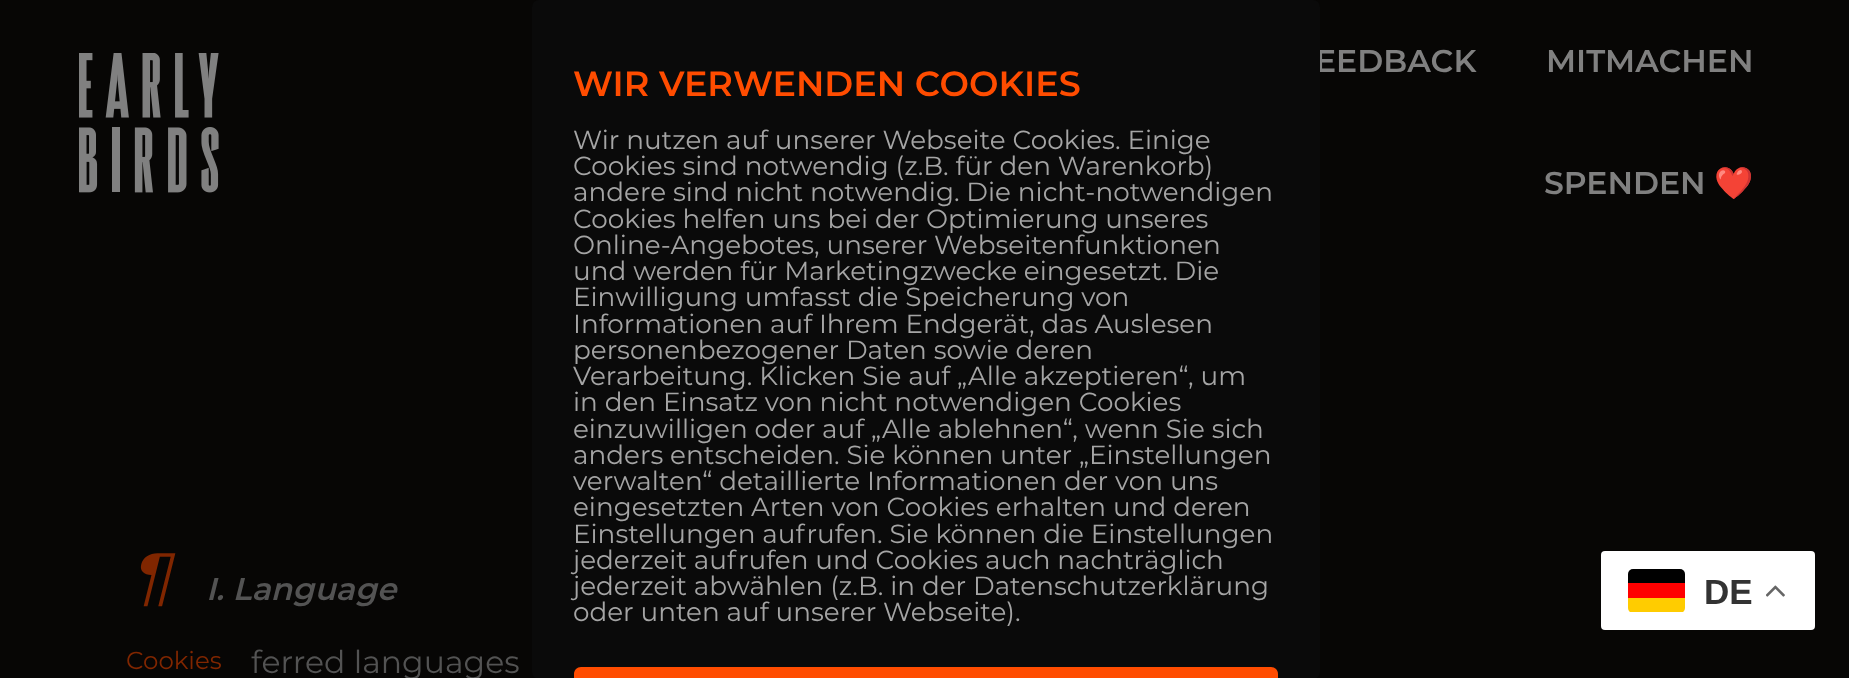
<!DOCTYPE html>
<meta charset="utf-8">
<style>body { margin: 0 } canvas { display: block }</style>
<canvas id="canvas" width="1849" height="678"></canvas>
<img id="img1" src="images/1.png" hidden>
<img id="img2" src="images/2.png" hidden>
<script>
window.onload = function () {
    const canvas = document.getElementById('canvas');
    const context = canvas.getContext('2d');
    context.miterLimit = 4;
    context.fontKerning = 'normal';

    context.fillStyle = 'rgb(7, 6, 5)';
    context.fillRect(0, 0, 1849, 678);
    context.drawImage(document.getElementById('img1'), 79, 53, 140, 140);
    context.fillStyle = 'rgb(255, 255, 255)';
    context.beginPath();
    context.roundRect(1601, 551, 214, 79, 4);
    context.fill();
    context.save();
    context.beginPath();
    context.roundRect(1628, 569, 57, 44, 5);
    context.clip();
    context.fillStyle = 'rgb(255, 204, 0)';
    context.fillRect(1628, 598, 57, 14);
    context.restore();
    context.fillStyle = 'rgb(0, 0, 0)';
    context.beginPath();
    context.roundRect(1628, 569, 57, 14, [5, 5, 0, 0]);
    context.fill();
    context.fillStyle = 'rgb(255, 0, 0)';
    context.fillRect(1628, 583, 57, 15);
    context.drawImage(document.getElementById('img2'), 1766, 585, 19, 12);
    context.font = 'italic 63px Montserrat';
    context.fillStyle = 'rgb(128, 38, 0)';
    context.fillText('¶', 131, 600);
    context.font = 'italic 600 31.5px Montserrat';
    context.fillStyle = 'rgb(83, 83, 83)';
    context.fillText('I. Language', 206, 600);
    context.font = '31.5px Montserrat';
    context.fillText('ferred languages', 251, 673);
    context.font = '600 31.5px Montserrat';
    context.fillStyle = 'rgb(128, 128, 128)';
    context.fillText('EEDBACK', 1315, 72);
    context.fillStyle = 'rgb(10, 10, 10)';
    context.beginPath();
    context.roundRect(532, 0, 788, 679, 7);
    context.fill();
    context.fillStyle = 'rgb(255, 76, 0)';
    context.beginPath();
    context.moveTo(581, 667);
    context.lineTo(1271, 667);
    context.bezierCurveTo(1275, 667, 1278, 670, 1278, 674);
    context.lineTo(1278, 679);
    context.lineTo(574, 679);
    context.lineTo(574, 674);
    context.bezierCurveTo(574, 670, 577, 667, 581, 667);
    context.closePath();
    context.fill();
    context.font = '26.25px Montserrat';
    context.fillStyle = 'rgb(165, 165, 165)';
    context.fillText('oder unten auf unserer Webseite).', 573, 621);
    context.fillText('jederzeit abwählen (z.B. in der Datenschutzerklärung', 573, 595);
    context.fillText('jederzeit aufrufen und Cookies auch nachträglich', 573, 569);
    context.fillText('Einstellungen aufrufen. Sie können die Einstellungen', 573, 543);
    context.fillText('eingesetzten Arten von Cookies erhalten und deren', 573, 516);
    context.fillText('verwalten“ detaillierte Informationen der von uns', 573, 490);
    context.fillText('anders entscheiden. Sie können unter „Einstellungen', 573, 464);
    context.fillText('einzuwilligen oder auf „Alle ablehnen“, wenn Sie sich', 573, 438);
    context.fillText('in den Einsatz von nicht notwendigen Cookies', 573, 411);
    context.fillText('Verarbeitung. Klicken Sie auf „Alle akzeptieren“, um', 573, 385);
    context.fillText('personenbezogener Daten sowie deren', 573, 359);
    context.fillText('Informationen auf Ihrem Endgerät, das Auslesen', 573, 333);
    context.fillText('Einwilligung umfasst die Speicherung von', 573, 306);
    context.fillText('und werden für Marketingzwecke eingesetzt. Die', 573, 280);
    context.fillText('Online-Angebotes, unserer Webseitenfunktionen', 573, 254);
    context.fillText('Cookies helfen uns bei der Optimierung unseres', 573, 228);
    context.fillText('andere sind nicht notwendig. Die nicht-notwendigen', 573, 201);
    context.fillText('Cookies sind notwendig (z.B. für den Warenkorb)', 573, 175);
    context.fillText('Wir nutzen auf unserer Webseite Cookies. Einige', 573, 149);
    context.font = '600 35px Montserrat';
    context.fillStyle = 'rgb(255, 76, 0)';
    context.fillText('WIR VERWENDEN COOKIES', 573, 96);
    context.font = '600 31.5px Montserrat';
    context.fillStyle = 'rgb(128, 128, 128)';
    context.fillText('MITMACHEN', 1546, 72);
    context.fillText('SPENDEN', 1544, 194);
    context.font = 'bold 31.5px Noto Color Emoji';
    context.fillText('❤️', 1714, 194);
    context.font = 'bold 35px Liberation Sans';
    context.fillStyle = 'rgb(51, 51, 51)';
    context.fillText('DE', 1704, 604);
    context.font = '24.5px Montserrat';
    context.fillStyle = 'rgb(128, 38, 0)';
    context.fillText('Cookies', 126, 669);
};
</script>
